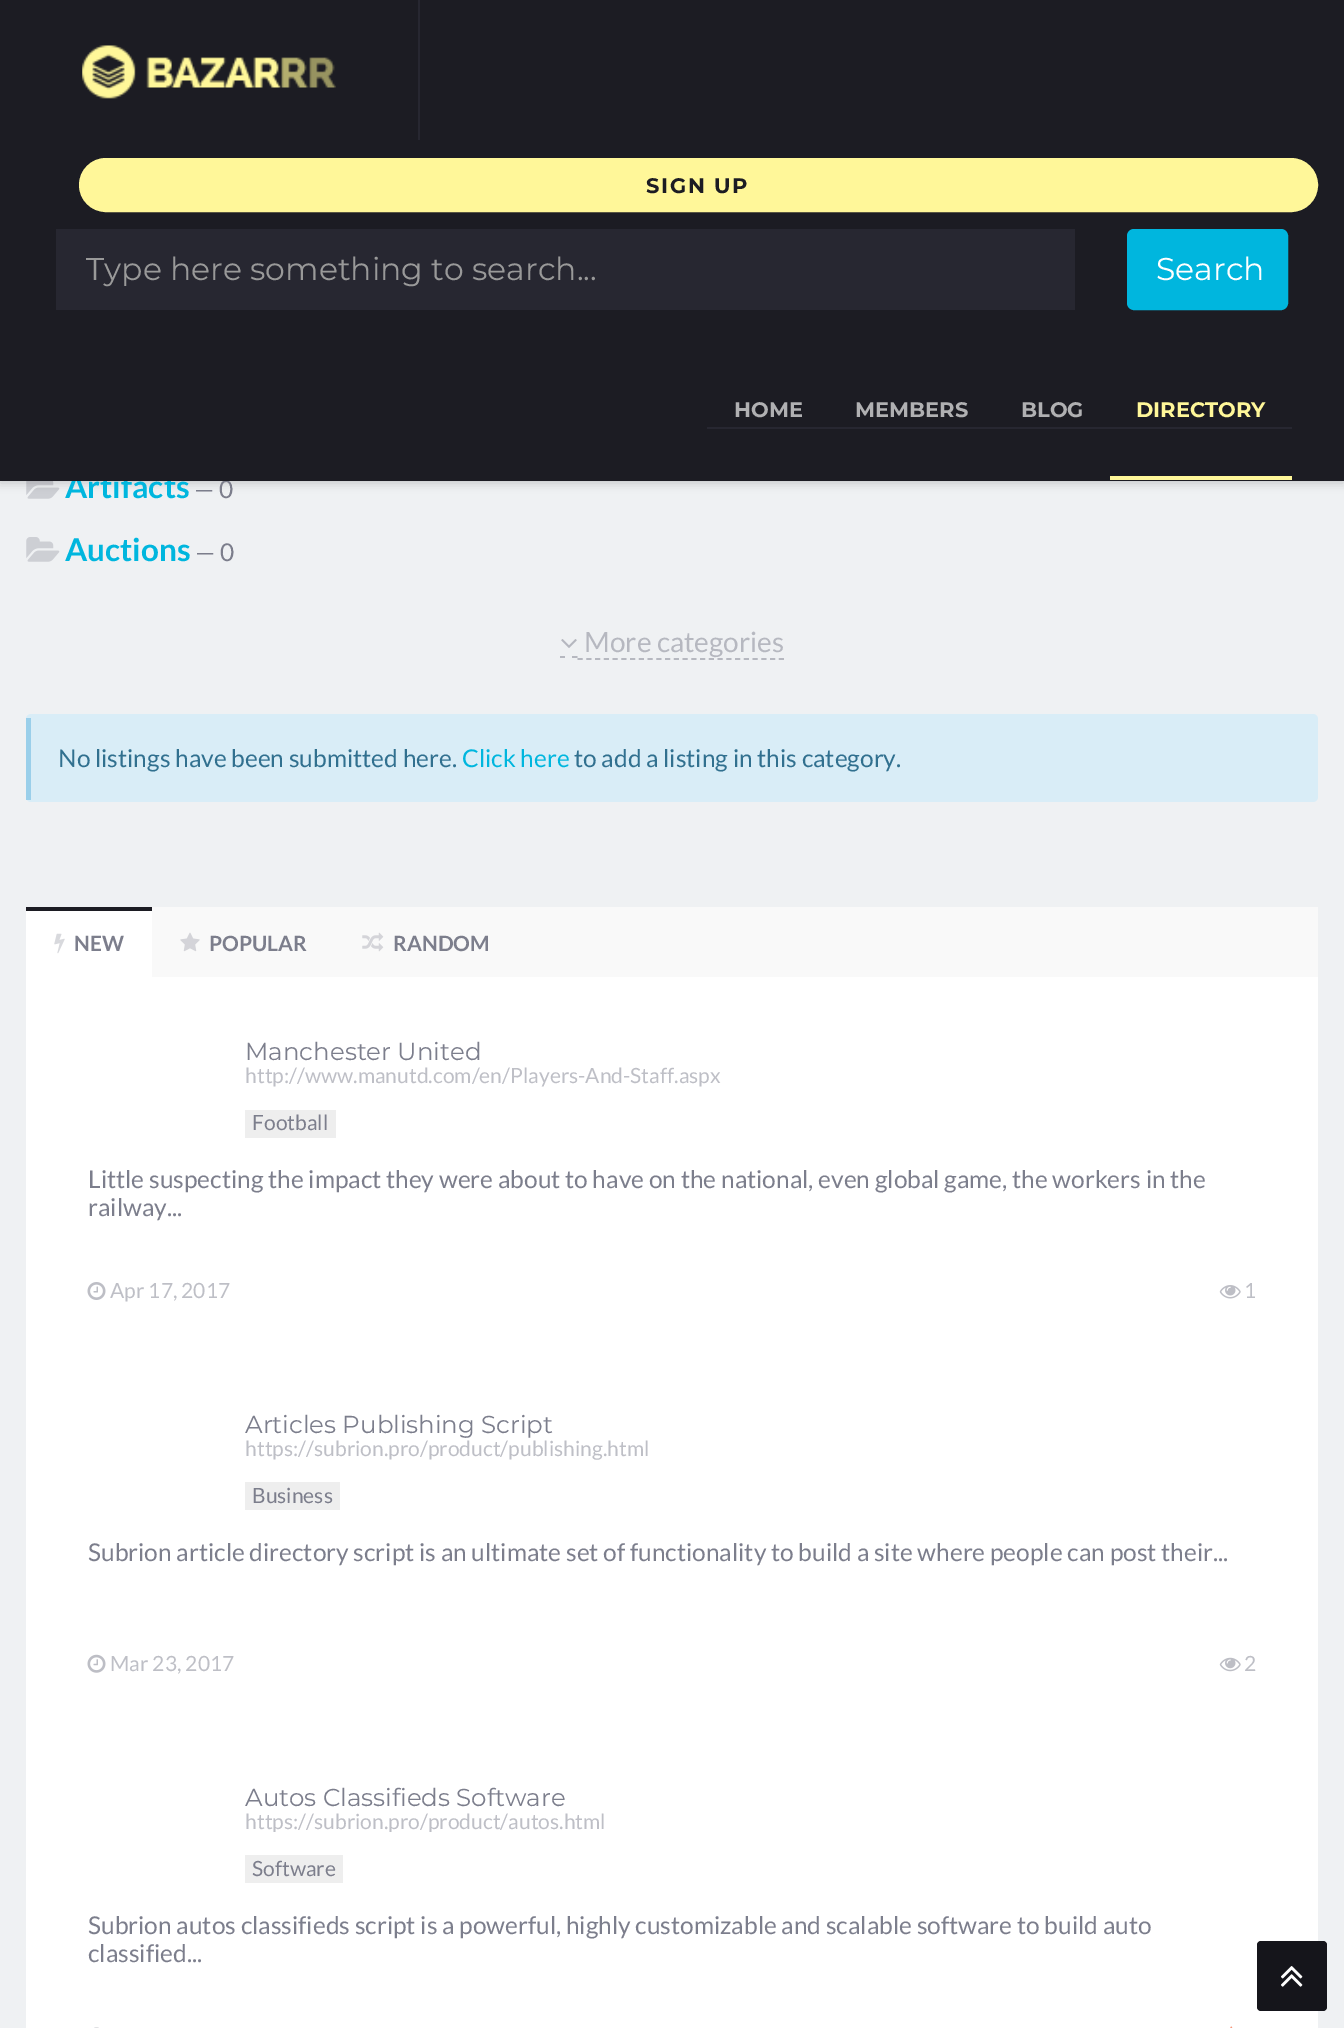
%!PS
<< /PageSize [1344 2028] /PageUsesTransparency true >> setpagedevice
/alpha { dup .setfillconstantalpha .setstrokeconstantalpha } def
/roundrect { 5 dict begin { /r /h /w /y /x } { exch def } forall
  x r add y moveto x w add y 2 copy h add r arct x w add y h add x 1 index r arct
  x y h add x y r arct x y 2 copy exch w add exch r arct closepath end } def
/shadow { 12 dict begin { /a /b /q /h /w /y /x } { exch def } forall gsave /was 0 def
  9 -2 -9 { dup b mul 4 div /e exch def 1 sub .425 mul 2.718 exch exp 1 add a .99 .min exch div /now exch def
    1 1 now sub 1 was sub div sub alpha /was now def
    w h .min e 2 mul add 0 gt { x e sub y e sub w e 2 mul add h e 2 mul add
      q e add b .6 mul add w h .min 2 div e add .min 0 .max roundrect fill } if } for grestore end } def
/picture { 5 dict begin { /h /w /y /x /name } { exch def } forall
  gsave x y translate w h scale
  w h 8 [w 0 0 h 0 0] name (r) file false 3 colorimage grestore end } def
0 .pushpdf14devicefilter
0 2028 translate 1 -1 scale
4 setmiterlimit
0.937 0.945 0.953 setrgbcolor
0 0 1344 2028 rectfill
(img2.rgb) 26 481 34 18 picture
0 setgray
0 2 1344 481 0 5 0.18 shadow
/Lato-Bold [31.5 0 0 -31.5 0 0] selectfont
0 0.714 0.871 setrgbcolor
65 498 moveto (Artifacts) show
/Lato-Regular [24.5 0 0 -24.5 0 0] selectfont
0.486 0.494 0.549 setrgbcolor
194 498 moveto (— 0) show
0.11 0.11 0.137 setrgbcolor
0 0 1344 481 rectfill
0.153 0.153 0.192 setrgbcolor
418 0 2 140 rectfill
(img1.rgb) 82 45 254 54 picture
1 0.969 0.6 setrgbcolor
80 159 1237 52 26 roundrect gsave fill grestore
2 setlinewidth
stroke
/Montserrat-Bold [21 0 0 -21 0 0] selectfont
0.11 0.11 0.137 setrgbcolor
646 193 moveto 1.75 0 (SIGN UP) ashow
0.153 0.153 0.192 setrgbcolor
56 229 1019 81 rectfill
/Montserrat-Regular [31.5 0 0 -31.5 0 0] selectfont
0.6 setgray
86 280 moveto (Type here something to search...) show
0 0.714 0.871 setrgbcolor
1128 230 159 79 6 roundrect gsave fill grestore
stroke
1 setgray
1156 280 moveto (Search) show
0.153 0.153 0.192 setrgbcolor
707 427 585 2 rectfill
/Montserrat-Bold [21 0 0 -21 0 0] selectfont
0.69 0.69 0.698 setrgbcolor
734 417 moveto (HOME) show
855 417 moveto (MEMBERS) show
1021 417 moveto (BLOG) show
1 0.969 0.6 setrgbcolor
1136 417 moveto (DIRECTORY) show
1110 476 182 4 rectfill
(img3.rgb) 26 537 34 25 picture
/Lato-Bold [31.5 0 0 -31.5 0 0] selectfont
0 0.714 0.871 setrgbcolor
65 561 moveto (Auctions) show
/Lato-Regular [24.5 0 0 -24.5 0 0] selectfont
0.486 0.494 0.549 setrgbcolor
195 561 moveto (— 0) show
0.714 0.722 0.753 setrgbcolor
1.8 setlinewidth
newpath 560 657 moveto 565 657 lineto 572 657 moveto 577.5 657 lineto stroke
[5.25 3.5] 0 setdash
newpath 577.5 659 moveto 784 659 lineto stroke
(img4.rgb) 561 639 16 9 picture
/Lato-Regular [28 0 0 -28 0 0] selectfont
584 652 moveto (More categories) show
0.851 0.929 0.969 setrgbcolor
26 714 1292 88 5 roundrect fill
0.604 0.812 0.918 setrgbcolor
26 718 5 82 rectfill
/Lato-Regular [24.5 0 0 -24.5 0 0] selectfont
0.192 0.439 0.561 setrgbcolor
58 767 moveto (No listings have been submitted here.) show
0 0.714 0.871 setrgbcolor
462 767 moveto (Click here) show
0.192 0.439 0.561 setrgbcolor
574 767 moveto (to add a listing in this category.) show
1 setgray
26 977 1292 1051 rectfill
0.976 setgray
152 907 1166 70 rectfill
1 setgray
26 911 126 66 rectfill
0.11 0.11 0.137 setrgbcolor
26 907 126 4 rectfill
(img5.rgb) 54 933 11 21 picture
/Lato-Bold [21 0 0 -21 0 0] selectfont
0.486 0.494 0.549 setrgbcolor
74 951 moveto (NEW) show
(img6.rgb) 180 932 20 20 picture
209 951 moveto (POPULAR) show
(img7.rgb) 362 932 22 20 picture
393 951 moveto (RANDOM) show
/Montserrat-Regular [24.5 0 0 -24.5 0 0] selectfont
245 1060 moveto (Manchester United) show
/Lato-Regular [21 0 0 -21 0 0] selectfont
0.745 0.749 0.776 setrgbcolor
245 1083 moveto (http://www.manutd.com/en/Players-And-Staff.aspx) show
0.933 setgray
245 1110 91 28 rectfill
0.486 0.494 0.549 setrgbcolor
252 1130 moveto (Football) show
/Lato-Regular [24.5 0 0 -24.5 0 0] selectfont
88 1188 moveto (Little suspecting the impact they were about to have on the national, even global game, the workers in the) show
88 1216 moveto (railway...) show
(img8.rgb) 87 1282 19 18 picture
/Lato-Regular [21 0 0 -21 0 0] selectfont
0.745 0.749 0.776 setrgbcolor
110 1298 moveto (Apr 17, 2017) show
(img9.rgb) 1219 1285 22 14 picture
1244 1298 moveto (1) show
/Montserrat-Regular [24.5 0 0 -24.5 0 0] selectfont
0.486 0.494 0.549 setrgbcolor
245 1433 moveto (Articles Publishing Script) show
/Lato-Regular [21 0 0 -21 0 0] selectfont
0.745 0.749 0.776 setrgbcolor
245 1456 moveto (https://subrion.pro/product/publishing.html) show
0.933 setgray
245 1482 95 28 rectfill
0.486 0.494 0.549 setrgbcolor
252 1503 moveto (Business) show
/Lato-Regular [24.5 0 0 -24.5 0 0] selectfont
88 1561 moveto (Subrion article directory script is an ultimate set of functionality to build a site where people can post their...) show
(img10.rgb) 87 1654 19 19 picture
/Lato-Regular [21 0 0 -21 0 0] selectfont
0.745 0.749 0.776 setrgbcolor
110 1671 moveto (Mar 23, 2017) show
(img11.rgb) 1219 1657 22 15 picture
1244 1671 moveto (2) show
/Montserrat-Regular [24.5 0 0 -24.5 0 0] selectfont
0.486 0.494 0.549 setrgbcolor
245 1806 moveto (Autos Classifieds Software) show
gsave
245 1811 1012 21 rectclip
/Lato-Regular [21 0 0 -21 0 0] selectfont
0.745 0.749 0.776 setrgbcolor
245 1829 moveto (https://subrion.pro/product/autos.html) show
grestore
0.933 setgray
245 1855 98 28 rectfill
/Lato-Regular [21 0 0 -21 0 0] selectfont
0.486 0.494 0.549 setrgbcolor
252 1876 moveto (Software) show
/Lato-Regular [24.5 0 0 -24.5 0 0] selectfont
88 1934 moveto (Subrion autos classifieds script is a powerful, highly customizable and scalable software to build auto) show
88 1962 moveto (classified...) show
(img12.rgb) 94 2027 5 1 picture
(img13.rgb) 1230 2026 3 2 picture
0.082 0.082 0.106 setrgbcolor
1257 1941 70 70 4 roundrect fill
(img14.rgb) 1281 1966 22 21 picture
.poppdf14devicefilter showpage
